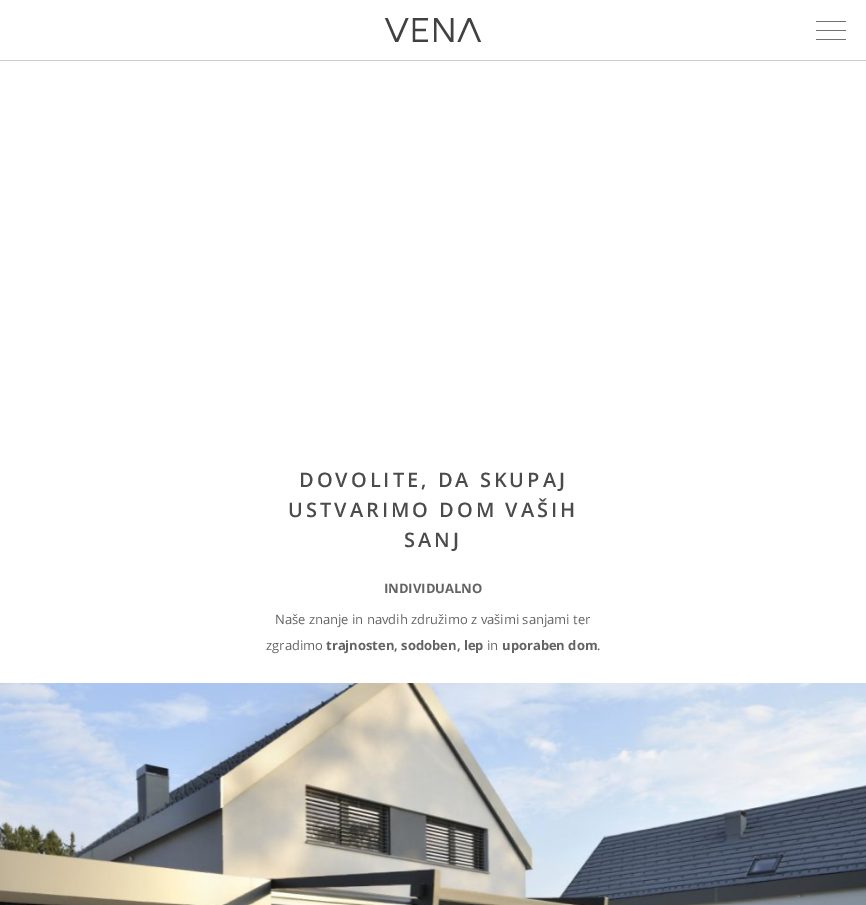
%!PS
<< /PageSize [866 905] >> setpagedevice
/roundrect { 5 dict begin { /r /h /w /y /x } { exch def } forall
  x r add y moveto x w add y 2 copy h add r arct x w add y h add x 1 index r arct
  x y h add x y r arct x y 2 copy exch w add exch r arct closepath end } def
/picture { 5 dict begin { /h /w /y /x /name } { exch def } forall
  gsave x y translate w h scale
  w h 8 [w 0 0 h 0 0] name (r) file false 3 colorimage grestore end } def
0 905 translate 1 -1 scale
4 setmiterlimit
1 setgray
0 0 866 905 rectfill
0.804 setgray
0 60 866 1 rectfill
(img1.rgb) 384 18 98 24 picture
0.443 0.443 0.439 setrgbcolor
816 21 30 1 0.5 roundrect fill
816 30 30 1 0.5 roundrect fill
816 39 30 1 0.5 roundrect fill
/OpenSans-SemiBold [20 0 0 -20 0 0] selectfont
0.294 0.294 0.29 setrgbcolor
299 487 moveto 3 0 (DOVOLITE, DA SKUPAJ) ashow
288 517 moveto 3 0 (USTVARIMO DOM VAŠIH) ashow
404 547 moveto 3 0 (SANJ) ashow
/OpenSans-Bold [13 0 0 -13 0 0] selectfont
0.388 setgray
384 593 moveto (INDIVIDUALNO) show
/OpenSans-Regular [13 0 0 -13 0 0] selectfont
275 624 moveto (Naše znanje in navdih združimo z vašimi sanjami ter) show
266 650 moveto (zgradimo) show
/OpenSans-Bold [13 0 0 -13 0 0] selectfont
326 650 moveto (trajnosten, sodoben, lep) show
/OpenSans-Regular [13 0 0 -13 0 0] selectfont
487 650 moveto (in) show
/OpenSans-Bold [13 0 0 -13 0 0] selectfont
502 650 moveto (uporaben dom) show
/OpenSans-Regular [13 0 0 -13 0 0] selectfont
597 650 moveto (.) show
(img2.rgb) 0 683 866 222 picture
showpage
